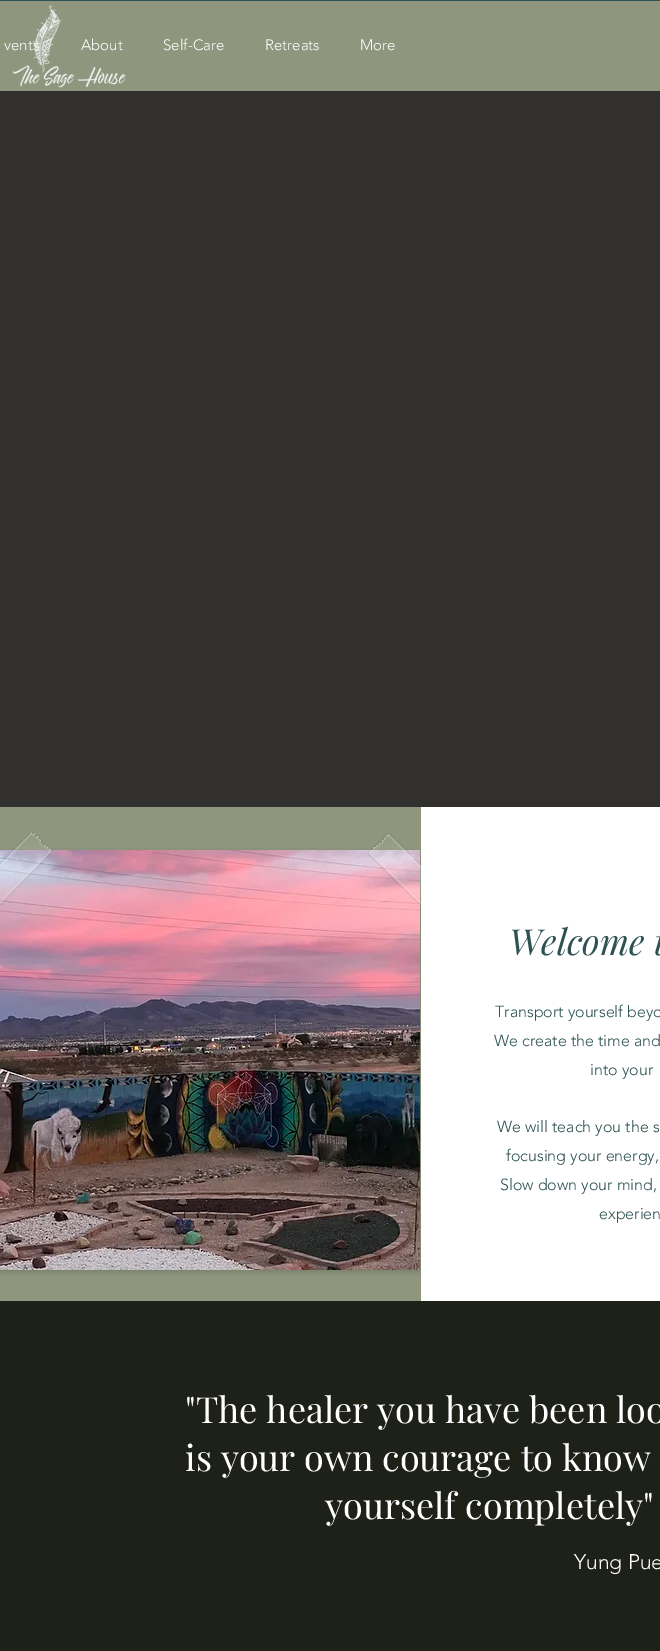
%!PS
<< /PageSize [660 1651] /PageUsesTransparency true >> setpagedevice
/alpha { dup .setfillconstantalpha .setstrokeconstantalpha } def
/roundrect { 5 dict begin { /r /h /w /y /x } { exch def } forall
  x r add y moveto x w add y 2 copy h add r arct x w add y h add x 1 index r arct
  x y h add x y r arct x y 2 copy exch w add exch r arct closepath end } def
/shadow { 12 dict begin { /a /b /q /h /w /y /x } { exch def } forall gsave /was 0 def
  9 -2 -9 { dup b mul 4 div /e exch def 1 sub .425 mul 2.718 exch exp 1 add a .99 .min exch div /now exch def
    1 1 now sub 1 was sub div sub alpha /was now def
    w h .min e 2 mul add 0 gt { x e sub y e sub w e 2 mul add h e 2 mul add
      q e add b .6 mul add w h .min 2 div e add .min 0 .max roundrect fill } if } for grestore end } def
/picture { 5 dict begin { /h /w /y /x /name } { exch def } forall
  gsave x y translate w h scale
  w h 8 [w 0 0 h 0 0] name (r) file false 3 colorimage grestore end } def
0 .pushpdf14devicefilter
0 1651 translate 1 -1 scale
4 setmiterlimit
0.18 0.322 0.322 setrgbcolor
0 0 660 1651 rectfill
0.557 0.588 0.494 setrgbcolor
0 1 660 90 rectfill
(img1.rgb) 12 5 114 83 picture
/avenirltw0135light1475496-Light [15 0 0 -15 0 0] selectfont
1 setgray
4 50 moveto (vents) show
81 50 moveto (About) show
163 50 moveto (Self-Care) show
265 50 moveto (Retreats) show
360 50 moveto (More) show
0.196 0.188 0.184 setrgbcolor
0 91 660 716 rectfill
0.557 0.588 0.494 setrgbcolor
0 807 421 494 rectfill
0 setgray
0 852 420 420 0 2.5 0.15 shadow
(img4.rgb) 0 850 420 420 picture
(img2.rgb) 0 832 52 74 picture
(img3.rgb) 368 833 53 73 picture
1 setgray
421 807 239 494 rectfill
/PlayfairDisplay-Italic [36 0 0 -36 0 0] selectfont
0.18 0.322 0.322 setrgbcolor
509 955 moveto (Welcome t) show
/avenirltw0135light1475496-Light [16 0 0 -16 0 0] selectfont
495 1017 moveto (Transport yourself beyo) show
494 1046 moveto (We create the time and) show
590 1075 moveto (into your) show
497 1132 moveto (We will teach you the s) show
506 1161 moveto (focusing your energy,) show
500 1190 moveto (Slow down your mind,) show
599 1219 moveto (experien) show
0.118 0.129 0.09 setrgbcolor
0 1301 660 350 rectfill
/PlayfairDisplay-Regular [36 0 0 -36 0 0] selectfont
1 setgray
185 1423 moveto ("The healer you have been loo) show
185 1471 moveto (is your own courage to know) show
325 1519 moveto (yourself completely") show
/avenirltw0135light1475496-Light [21 0 0 -21 0 0] selectfont
574 1569 moveto (Yung Pue) show
.poppdf14devicefilter showpage
